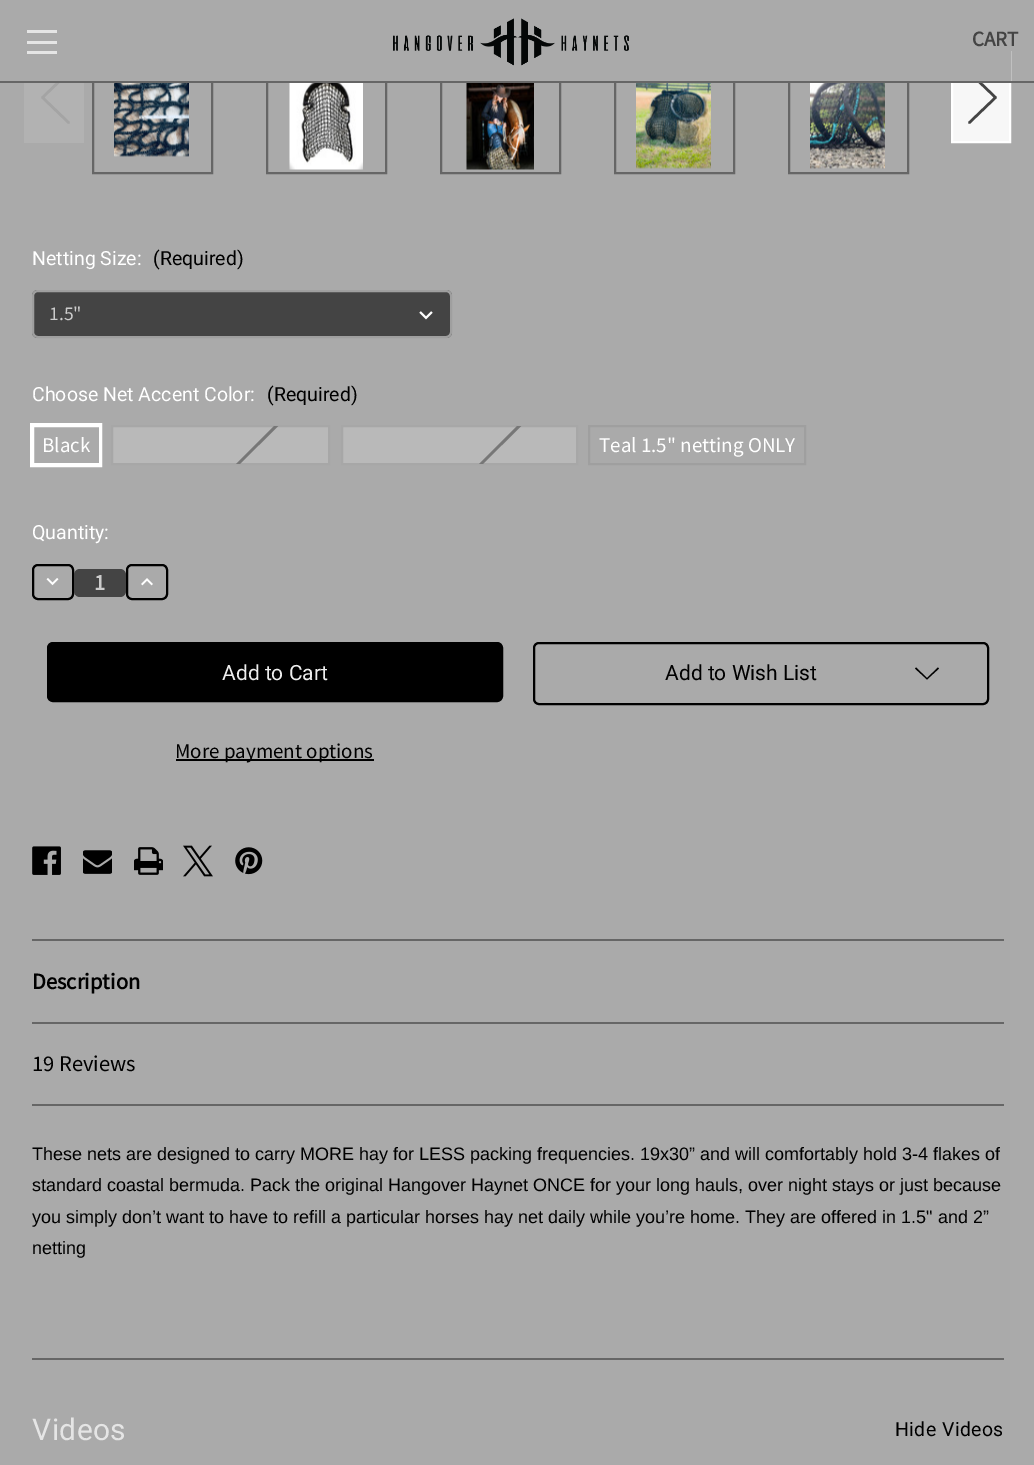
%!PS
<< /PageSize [1034 1465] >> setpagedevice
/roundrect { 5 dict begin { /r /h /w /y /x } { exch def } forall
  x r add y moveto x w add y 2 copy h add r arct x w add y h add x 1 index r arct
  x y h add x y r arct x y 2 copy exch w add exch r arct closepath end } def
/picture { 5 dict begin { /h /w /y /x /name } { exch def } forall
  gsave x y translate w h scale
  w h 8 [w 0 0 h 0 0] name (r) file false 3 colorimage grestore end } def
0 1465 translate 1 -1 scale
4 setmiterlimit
0.667 setgray
0 0 1034 1465 rectfill
0.698 setgray
24 83 60 60 rectfill
0.643 setgray
2.5 setlinewidth
1 setlinecap
1 setlinejoin
newpath 68.5 72.5 moveto 42.5 97.5 lineto 68.5 122.5 lineto stroke
0.4 setgray
2 setlinewidth
0 setlinecap
0 setlinejoin
93 66 119 107 rectstroke
267 66 119 107 rectstroke
441 66 119 107 rectstroke
615 66 119 107 rectstroke
789 66 119 107 rectstroke
0.969 setgray
953 83 56 58 rectfill
1 setgray
952 52 58 90 rectstroke
0.267 setgray
2.5 setlinewidth
1 setlinecap
1 setlinejoin
newpath 969.5 72.5 moveto 995.5 97.5 lineto 969.5 122.5 lineto stroke
0.667 setgray
58 51 953 30 rectfill
0.4 setgray
0 81 1034 2 rectfill
0.898 setgray
27 41 30 3 rectfill
27 30 30 3 rectfill
27 51 30 3 rectfill
(img1.rgb) 393 18 236 48 picture
/SourceSansPro-Bold [21 0 0 -21 0 0] selectfont
0.267 setgray
972 46 moveto (CART) show
(img2.rgb) 114 83 75 74 picture
(img3.rgb) 289 83 74 87 picture
(img4.rgb) 466 83 68 87 picture
(img5.rgb) 636 83 75 86 picture
(img6.rgb) 810 83 75 86 picture
/Roboto-Regular [19.5 0 0 -19.5 0 0] selectfont
1 setgray
32 265 moveto (Netting Size:) show
0 setgray
153 265 moveto (\(Required\)) show
0.267 setgray
32 290 420 48 6 roundrect fill
(img7.rgb) 419 311 14 9 picture
0.624 setgray
2 setlinewidth
0 setlinecap
0 setlinejoin
33 291 418 46 5 roundrect stroke
/SourceSansPro-Regular [19.5 0 0 -19.5 0 0] selectfont
0.8 setgray
49 320 moveto (1.5") show
/Roboto-Regular [19.5 0 0 -19.5 0 0] selectfont
1 setgray
32 401 moveto (Choose Net Accent Color:) show
0 setgray
267 401 moveto (\(Required\)) show
1 setgray
31 424 70 42 rectstroke
33 426 67 38 rectstroke
/SourceSansPro-Regular [21 0 0 -21 0 0] selectfont
42 452 moveto (Black) show
0.725 setgray
newpath 112 426 moveto 329 426 lineto 329 464 lineto 112 464 lineto closepath gsave fill grestore
0.655 setgray
stroke
gsave
113 426 216 38 rectclip
0.467 setgray
newpath 149 551 moveto 364 336 lineto 366 338 lineto 151 553 lineto closepath fill
grestore
0.725 setgray
newpath 342 426 moveto 577 426 lineto 577 464 lineto 342 464 lineto closepath gsave fill grestore
0.655 setgray
stroke
gsave
342 426 234 38 rectclip
0.467 setgray
newpath 382 561 moveto 616 327 lineto 618 329 lineto 384 563 lineto closepath fill
grestore
0.624 setgray
589 426 216 38 rectstroke
1 setgray
599 452 moveto (Teal 1.5" netting ONLY) show
/Roboto-Regular [19.5 0 0 -19.5 0 0] selectfont
32 539 moveto (Quantity:) show
0 setgray
33 565 40 34 5 roundrect stroke
(img8.rgb) 46 578 13 8 picture
0.267 setgray
74 569 52 28 6 roundrect fill
/SourceSansPro-Bold [22.5 0 0 -22.5 0 0] selectfont
0.8 setgray
94 590 moveto (1) show
0 setgray
127 565 40 34 5 roundrect stroke
(img9.rgb) 141 578 12 8 picture
48 643 454 58 5 roundrect gsave fill grestore
stroke
/Roboto-Regular [21 0 0 -21 0 0] selectfont
0.933 setgray
222 680 moveto (Add to Cart) show
0 setgray
176 759 198 2 rectfill
/SourceSansPro-Regular [21 0 0 -21 0 0] selectfont
175 758 moveto (More payment options) show
534 643 454 61 5 roundrect stroke
/Roboto-Regular [21 0 0 -21 0 0] selectfont
665 680 moveto (Add to Wish List) show
newpath 927 678 moveto 938 667.5 lineto 939 668.5 lineto 927 679.5 lineto 915 668.5 lineto 916 667.5 lineto closepath eofill
(img10.rgb) 32 846 29 29 picture
(img11.rgb) 83 850 29 24 picture
(img12.rgb) 134 847 29 28 picture
(img13.rgb) 183 845 30 32 picture
(img14.rgb) 235 847 28 28 picture
0.4 setgray
32 1104 972 2 rectfill
32 939 972 2 rectfill
/SourceSansPro-Bold [22.5 0 0 -22.5 0 0] selectfont
0 setgray
32 989 moveto (Description) show
0.4 setgray
32 1022 972 2 rectfill
/SourceSansPro-Regular [22.5 0 0 -22.5 0 0] selectfont
0 setgray
32 1071 moveto (19 Reviews) show
/LiberationSans-Regular [18 0 0 -18 0 0] selectfont
32 1160 moveto (These nets are designed to carry MORE hay for LESS packing frequencies. 19x30” and will comfortably hold 3-4 flakes of) show
32 1191 moveto (standard coastal bermuda. Pack the original Hangover Haynet ONCE for your long hauls, over night stays or just because) show
32 1223 moveto (you simply don’t want to have to refill a particular horses hay net daily while you’re home. They are offered in 1.5" and 2”) show
32 1254 moveto (netting) show
0.4 setgray
32 1358 972 2 rectfill
/Roboto-Regular [30 0 0 -30 0 0] selectfont
0.898 setgray
32 1440 moveto 0.4 0 (Videos) ashow
/Roboto-Regular [19.5 0 0 -19.5 0 0] selectfont
0 setgray
895 1436 moveto 0.4 0 (Hide Videos) ashow
showpage
